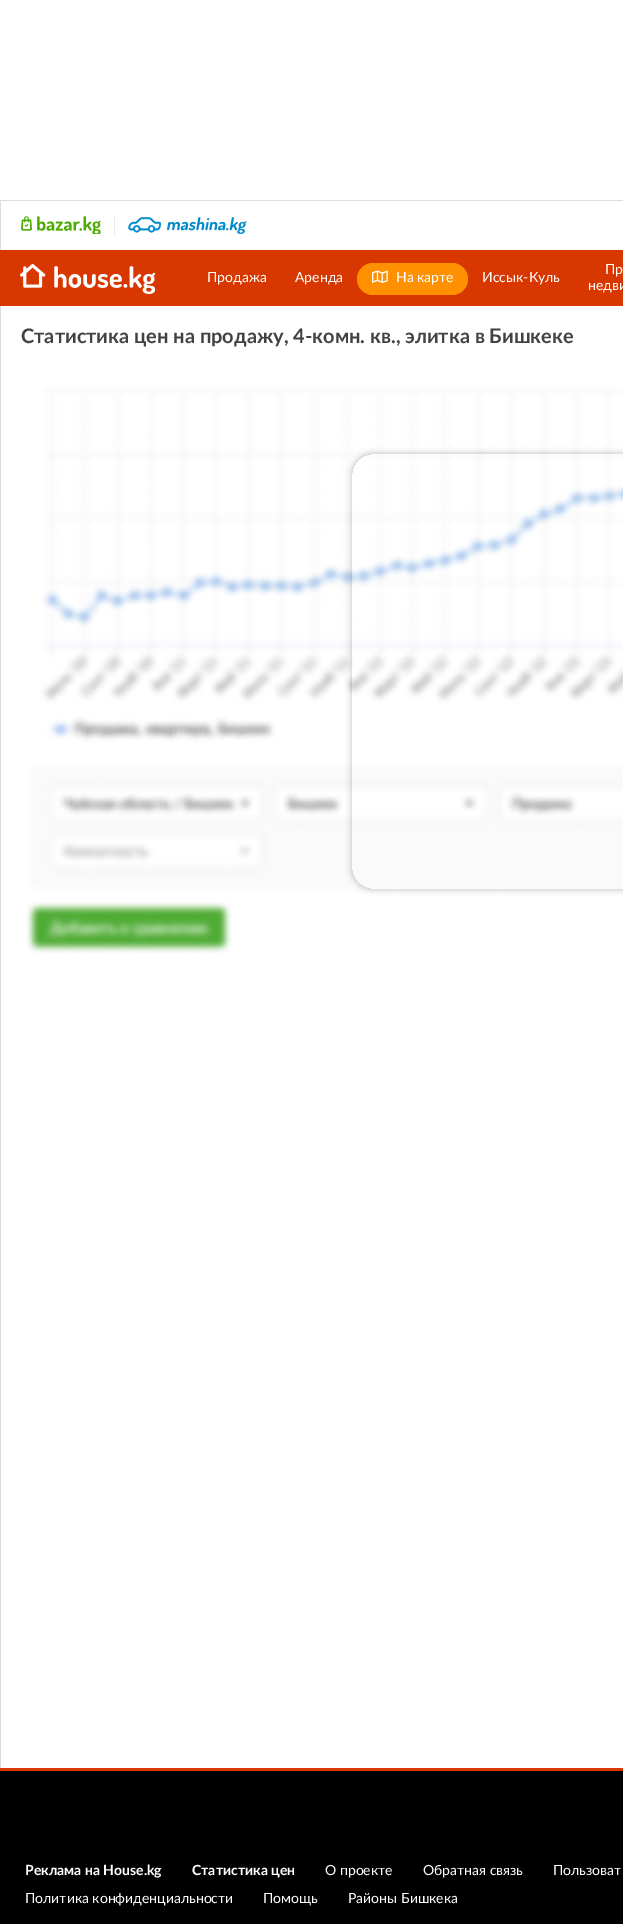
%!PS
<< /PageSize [623 1924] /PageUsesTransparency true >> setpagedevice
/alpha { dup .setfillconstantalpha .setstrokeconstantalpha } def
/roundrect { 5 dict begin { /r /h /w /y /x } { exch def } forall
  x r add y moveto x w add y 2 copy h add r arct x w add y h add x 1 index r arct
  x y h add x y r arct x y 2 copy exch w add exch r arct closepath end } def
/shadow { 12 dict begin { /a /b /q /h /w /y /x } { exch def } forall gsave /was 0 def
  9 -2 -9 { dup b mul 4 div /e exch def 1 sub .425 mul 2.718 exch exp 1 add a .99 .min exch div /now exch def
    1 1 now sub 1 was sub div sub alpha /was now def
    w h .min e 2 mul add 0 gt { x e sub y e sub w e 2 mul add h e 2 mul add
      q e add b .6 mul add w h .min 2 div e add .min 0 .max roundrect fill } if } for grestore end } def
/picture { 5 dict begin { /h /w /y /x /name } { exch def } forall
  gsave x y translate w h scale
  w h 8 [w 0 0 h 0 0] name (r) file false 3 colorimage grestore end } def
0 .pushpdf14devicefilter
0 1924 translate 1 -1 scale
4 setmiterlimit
1 setgray
0 0 623 1924 rectfill
0.871 setgray
0 200 623 1 rectfill
0 200 1 50 rectfill
(img1.rgb) 21 216 80 18 picture
0.925 setgray
114 216 1 20 rectfill
(img2.rgb) 128 217 119 17 picture
0.847 0.216 0 setrgbcolor
0 250 623 56 rectfill
(img3.rgb) 20 264 135 30 picture
/Lato-Regular [14 0 0 -14 0 0] selectfont
1 setgray
207 282 moveto (Продажа) show
295 282 moveto (Аренда) show
1 0.565 0 setrgbcolor
357 263 111 32 16 roundrect fill
(img4.rgb) 372 270 16 13 picture
1 setgray
396 282 moveto (На карте) show
482 282 moveto (Иссык-Куль) show
605 274 moveto (Пр) show
588 290 moveto (недви) show
0.863 setgray
0 306 1 1462 rectfill
/Lato-Bold [20 0 0 -20 0 0] selectfont
0.259 setgray
21 343 moveto (Статистика цен на продажу, 4-комн. кв., элитка в Бишкеке) show
(img5.rgb) 26 387 597 567 picture
gsave
newpath 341 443 moveto 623 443 lineto 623 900 lineto 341 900 lineto closepath 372 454 moveto 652 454 lineto 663 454 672 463 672 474 curveto 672 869 lineto 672 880 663 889 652 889 curveto 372 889 lineto 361 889 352 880 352 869 curveto 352 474 lineto 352 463 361 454 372 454 curveto closepath eoclip newpath
0 setgray
351 453 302 437 21 3 0.2 shadow
grestore
0 setgray
0 1771 623 153 rectfill
0.847 0.216 0 setrgbcolor
0 1768 623 3 rectfill
/Lato-Bold [14 0 0 -14 0 0] selectfont
1 setgray
25 1875 moveto (Реклама на House.kg) show
192 1875 moveto (Статистика цен) show
/Lato-Regular [14 0 0 -14 0 0] selectfont
325 1875 moveto (О проекте) show
423 1875 moveto (Обратная связь) show
553 1875 moveto (Пользоват) show
25 1903 moveto (Политика конфиденциальности) show
263 1903 moveto (Помощь) show
348 1903 moveto (Районы Бишкека) show
.poppdf14devicefilter showpage
